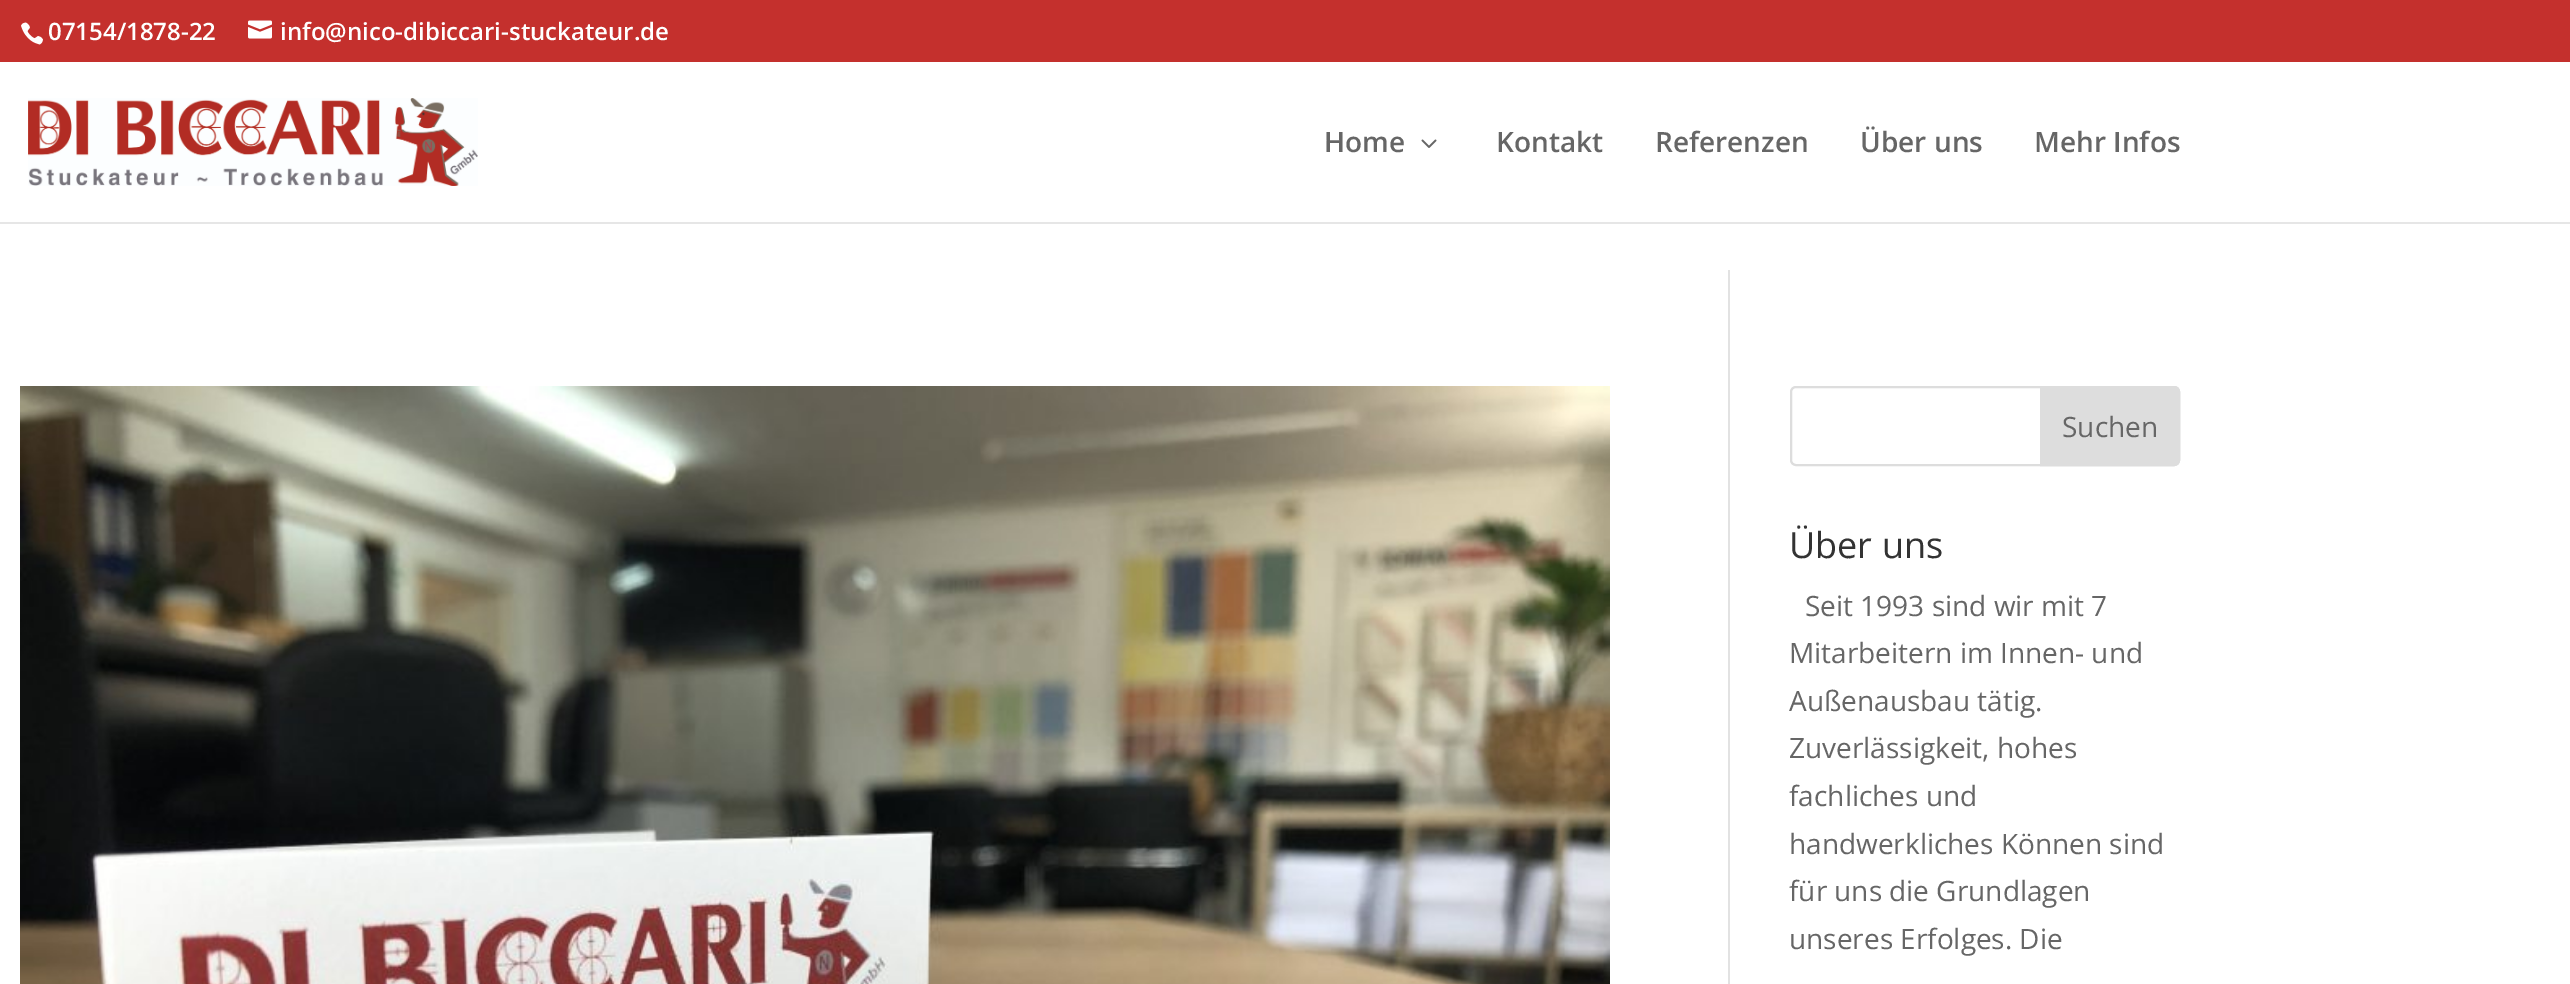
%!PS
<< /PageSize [2570 984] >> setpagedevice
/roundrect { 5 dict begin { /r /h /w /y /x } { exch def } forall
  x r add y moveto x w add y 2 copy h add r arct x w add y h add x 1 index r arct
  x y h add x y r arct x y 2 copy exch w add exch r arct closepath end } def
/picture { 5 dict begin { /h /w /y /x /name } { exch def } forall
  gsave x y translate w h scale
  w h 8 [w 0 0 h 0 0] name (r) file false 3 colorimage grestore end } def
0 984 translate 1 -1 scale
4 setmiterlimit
1 setgray
0 0 2570 984 rectfill
0.769 0.188 0.176 setrgbcolor
0 0 2570 62 rectfill
(img1.rgb) 21 22 22 23 picture
/OpenSans-SemiBold [24 0 0 -24 0 0] selectfont
1 setgray
48 40 moveto (07154/1878-22) show
(img2.rgb) 248 20 24 19 picture
280 40 moveto (info@nico-dibiccari-stuckateur.de) show
0.902 setgray
0 222 2570 2 rectfill
(img3.rgb) 28 98 450 88 picture
/OpenSans-SemiBold [28 0 0 -28 0 0] selectfont
0.4 setgray
1324 152 moveto (Home) show
(img4.rgb) 1421 139 16 9 picture
1496 152 moveto (Kontakt) show
1655 152 moveto (Referenzen) show
1860 152 moveto (Über uns) show
2034 152 moveto (Mehr Infos) show
0.886 setgray
1728 270 2 714 rectfill
(img5.rgb) 20 386 1590 598 picture
0.867 setgray
2 setlinewidth
1791 387 388 78 5 roundrect stroke
newpath 2041 387 moveto 2174 387 lineto 2177 387 2179 389 2179 392 curveto 2179 460 lineto 2179 463 2177 465 2174 465 curveto 2041 465 lineto closepath gsave fill grestore
stroke
/OpenSans-Regular [28 0 0 -28 0 0] selectfont
0.4 setgray
2062 437 moveto (Suchen) show
/OpenSans-Regular [36 0 0 -36 0 0] selectfont
0.2 setgray
1789 558 moveto (Über uns) show
/OpenSans-Regular [28 0 0 -28 0 0] selectfont
0.4 setgray
1805 616 moveto (Seit 1993 sind wir mit 7) show
1789 663 moveto (Mitarbeitern im Innen- und) show
1789 711 moveto (Außenausbau tätig.) show
1789 758 moveto (Zuverlässigkeit, hohes) show
1789 806 moveto (fachliches und) show
1789 854 moveto (handwerkliches Können sind) show
1789 901 moveto (für uns die Grundlagen) show
1789 949 moveto (unseres Erfolges. Die) show
showpage
